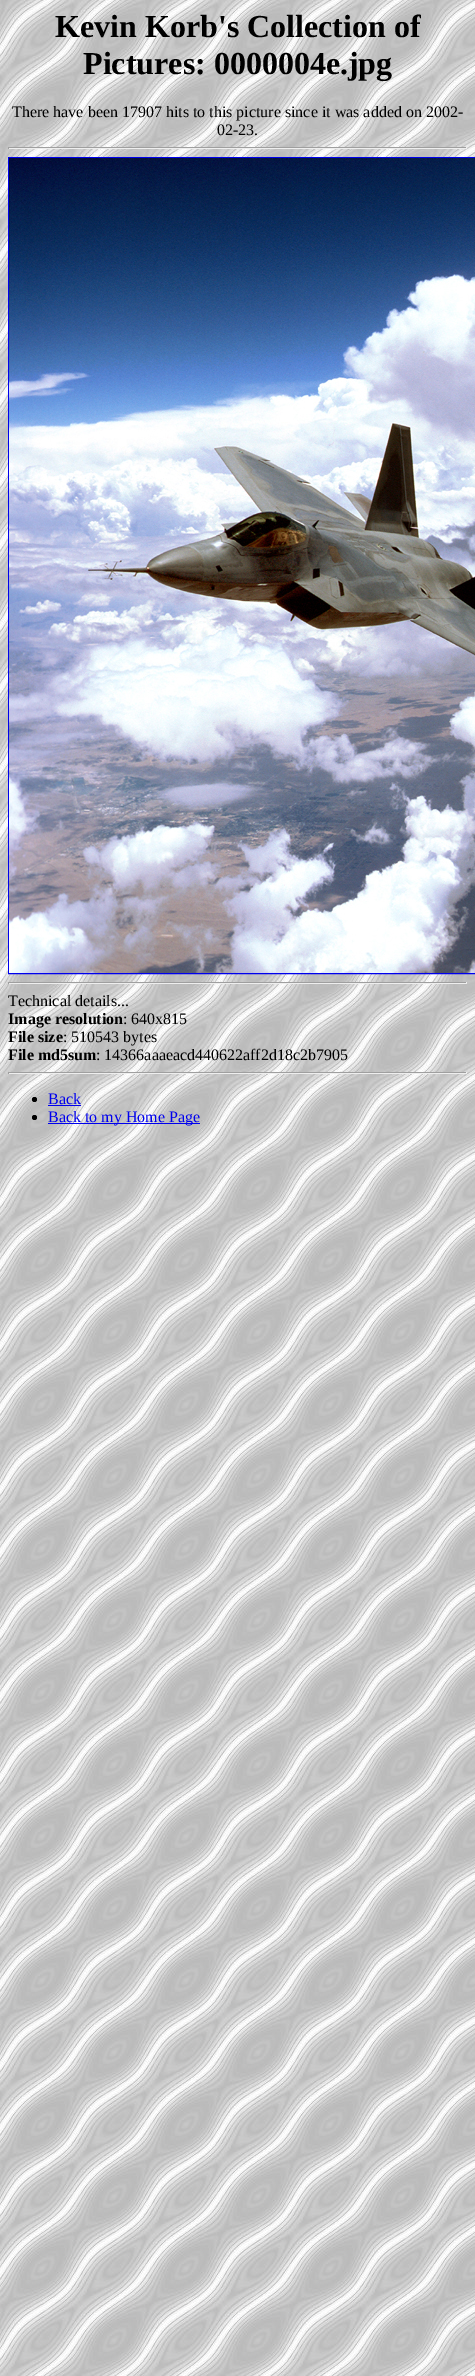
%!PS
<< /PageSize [475 2376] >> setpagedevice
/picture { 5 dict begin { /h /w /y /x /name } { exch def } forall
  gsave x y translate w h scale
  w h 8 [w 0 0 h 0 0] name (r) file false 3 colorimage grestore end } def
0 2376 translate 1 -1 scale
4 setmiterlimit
1 setgray
0 0 475 2376 rectfill
(img1.rgb) 0 0 475 2376 picture
/LiberationSerif-Bold [32 0 0 -32 0 0] selectfont
0 setgray
55 37 moveto (Kevin Korb's Collection of) show
83 74 moveto (Pictures: 0000004e.jpg) show
/LiberationSerif-Regular [16 0 0 -16 0 0] selectfont
12 117 moveto (There have been 17907 hits to this picture since it was added on 2002-) show
217 135 moveto (02-23.) show
0.624 setgray
8 147 459 1 rectfill
0.933 setgray
466 147 1 2 rectfill
8 148 459 1 rectfill
0.624 setgray
8 147 1 2 rectfill
0 0 0.933 setrgbcolor
8.5 157.5 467 816 rectstroke
(img2.rgb) 9 158 466 815 picture
0.624 setgray
8 982 459 1 rectfill
0.933 setgray
466 982 1 2 rectfill
8 983 459 1 rectfill
0.624 setgray
8 982 1 2 rectfill
0 setgray
8 1006 moveto (Technical details...) show
/LiberationSerif-Bold [16 0 0 -16 0 0] selectfont
8 1024 moveto (Image resolution) show
/LiberationSerif-Regular [16 0 0 -16 0 0] selectfont
123 1024 moveto (: 640x815) show
/LiberationSerif-Bold [16 0 0 -16 0 0] selectfont
8 1042 moveto (File size) show
/LiberationSerif-Regular [16 0 0 -16 0 0] selectfont
63 1042 moveto (: 510543 bytes) show
/LiberationSerif-Bold [16 0 0 -16 0 0] selectfont
8 1060 moveto (File md5sum) show
/LiberationSerif-Regular [16 0 0 -16 0 0] selectfont
96 1060 moveto (: 14366aaaeacd440622aff2d18c2b7905) show
0.624 setgray
8 1072 459 1 rectfill
0.933 setgray
466 1072 1 2 rectfill
8 1073 459 1 rectfill
0.624 setgray
8 1072 1 2 rectfill
0 setgray
newpath 34.5 1099.5 2.5 0 360 arc closepath fill
0 0 0.933 setrgbcolor
48 1104 moveto (Back) show
48 1105 33 1 rectfill
0 setgray
newpath 34.5 1117.5 2.5 0 360 arc closepath fill
0 0 0.933 setrgbcolor
48 1123 152 1 rectfill
48 1122 moveto (Back to my Home Page) show
showpage
